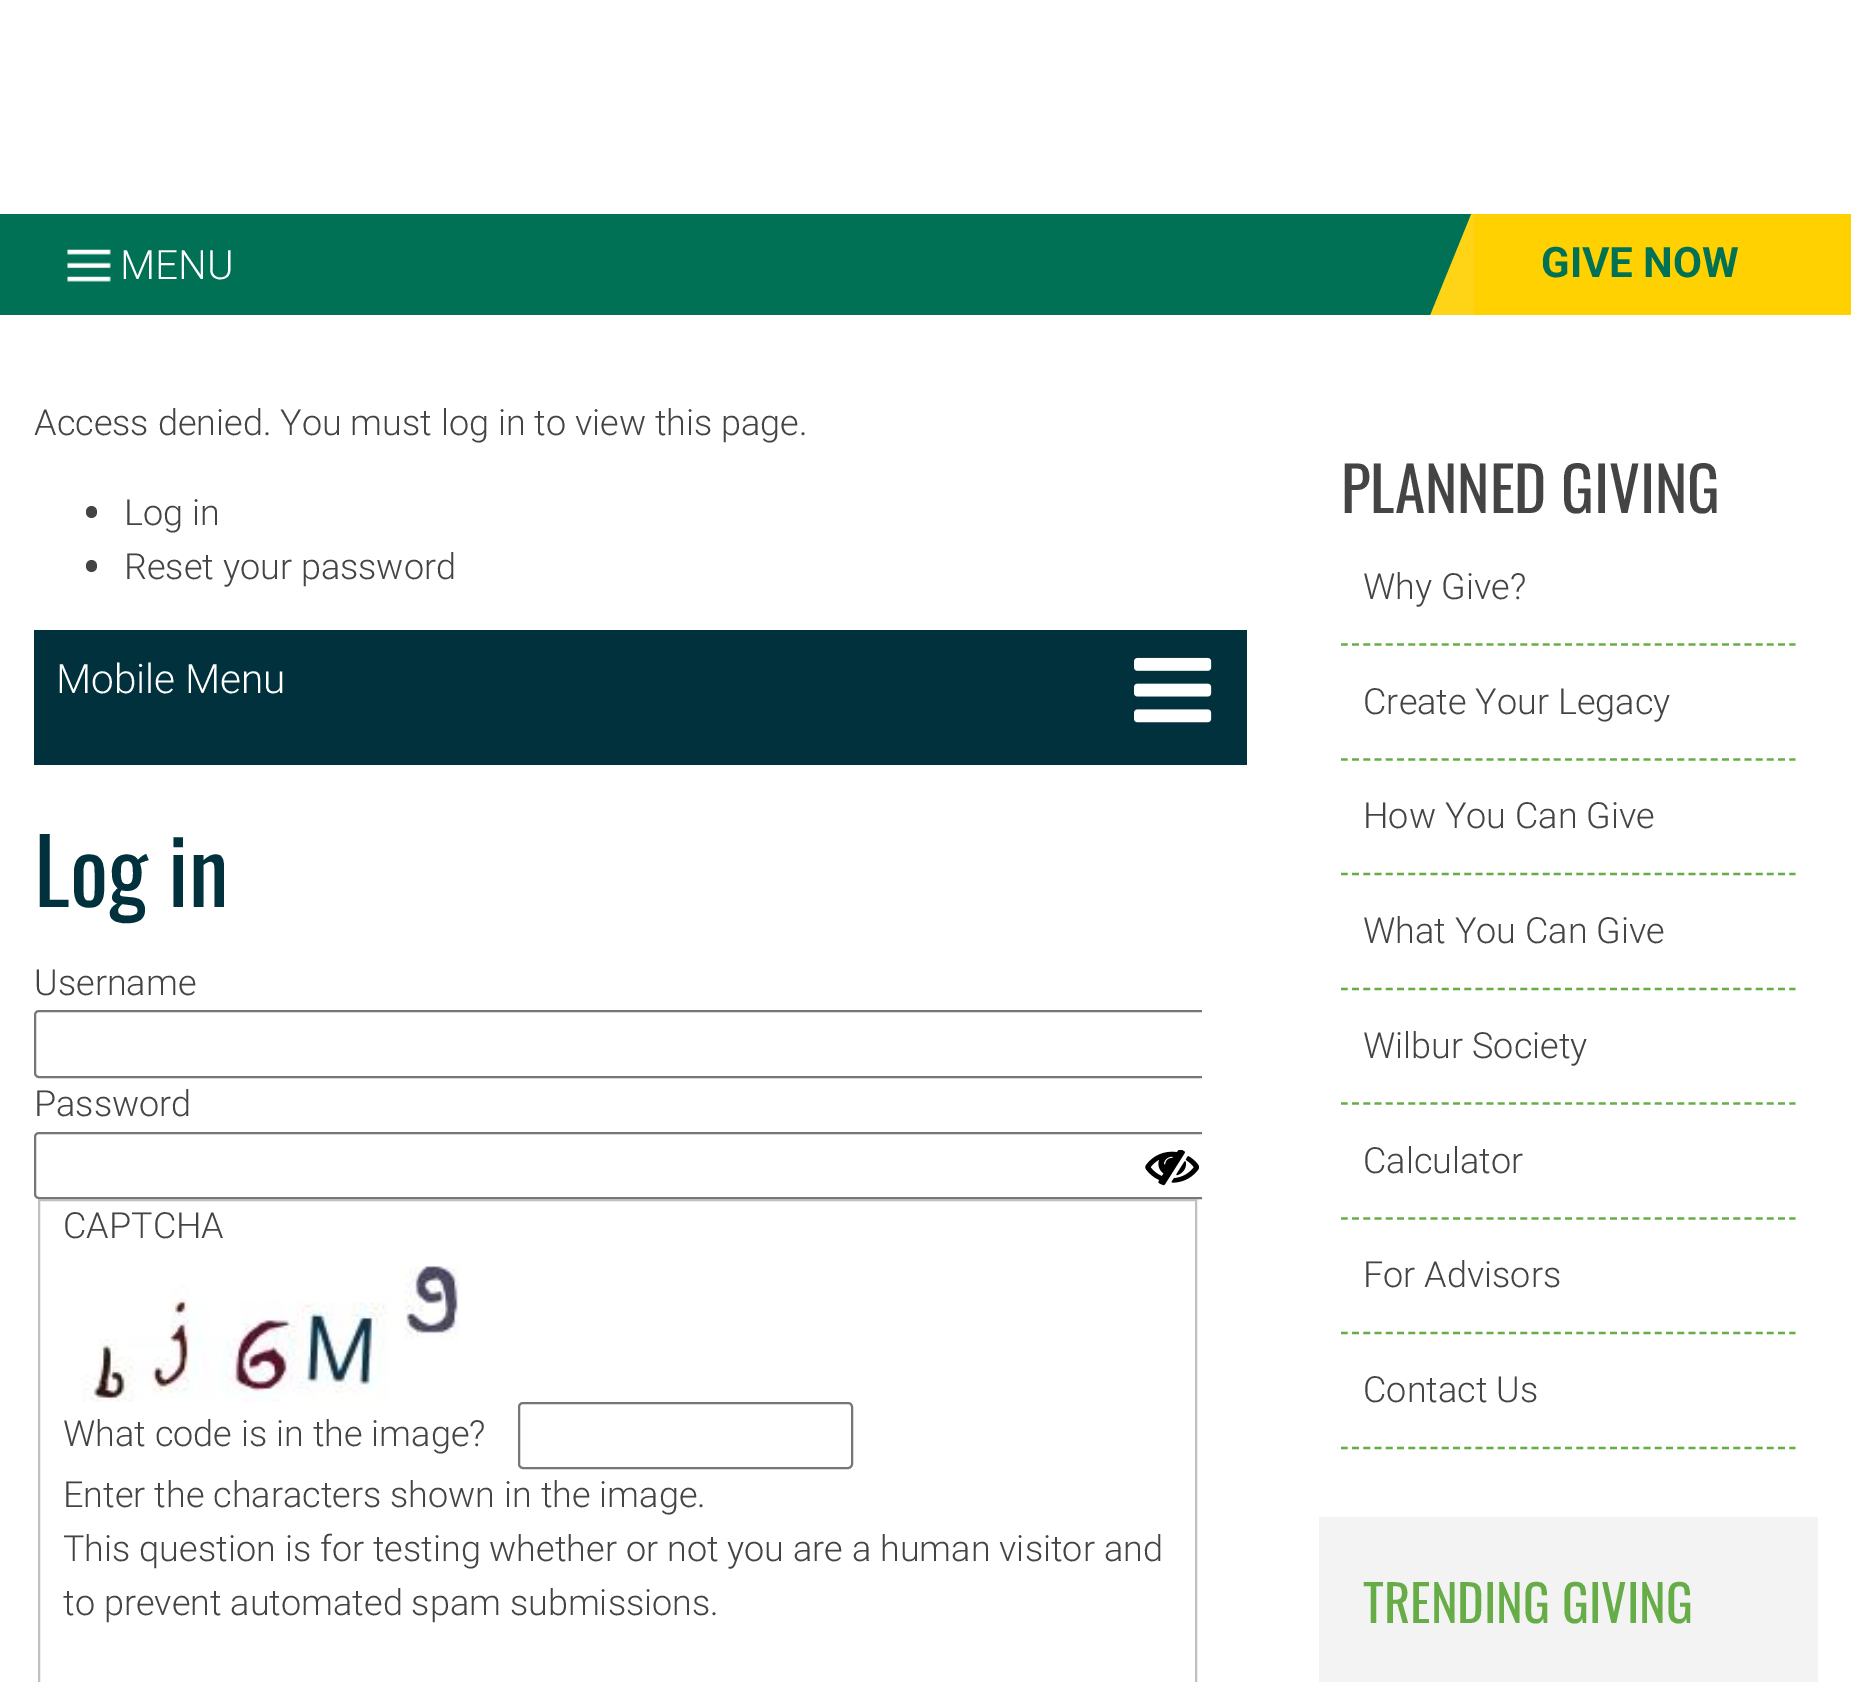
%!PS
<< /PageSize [1851 1682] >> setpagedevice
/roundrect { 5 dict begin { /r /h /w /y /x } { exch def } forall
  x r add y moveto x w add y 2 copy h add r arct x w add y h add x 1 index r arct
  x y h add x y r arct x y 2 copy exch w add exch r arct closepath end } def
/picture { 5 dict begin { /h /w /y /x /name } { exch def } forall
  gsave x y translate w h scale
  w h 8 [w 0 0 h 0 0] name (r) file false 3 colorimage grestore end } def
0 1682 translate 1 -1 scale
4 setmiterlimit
1 setgray
0 0 1851 1682 rectfill
0 0.443 0.333 setrgbcolor
0 214 1449 101 rectfill
(img1.rgb) 67 249 44 33 picture
/Roboto-Light [40.5 0 0 -40.5 0 0] selectfont
1 setgray
120 279 moveto (MENU) show
1 0.831 0.086 setrgbcolor
newpath 1462 214 moveto 1575 214 lineto 1534 315 lineto 1421 315 lineto closepath fill
0 0.443 0.333 setrgbcolor
newpath 1449 214 moveto 1471 214 lineto 1430 315 lineto 1408 315 lineto closepath fill
1 0.82 0 setrgbcolor
1474 214 377 101 rectfill
/Roboto-Bold [42 0 0 -42 0 0] selectfont
0 0.443 0.333 setrgbcolor
1541 277 moveto (GIVE NOW) show
/Roboto-Light [36 0 0 -36 0 0] selectfont
0.267 setgray
34 435 moveto (Access denied. You must log in to view this page.) show
86 506 11 12 5.5 roundrect fill
124 525 moveto (Log in) show
86 560 11 12 5.5 roundrect fill
124 579 moveto (Reset your password) show
0 0.192 0.235 setrgbcolor
34 630 1213 135 rectfill
/Roboto-Light [40.5 0 0 -40.5 0 0] selectfont
1 setgray
56 693 moveto (Mobile Menu) show
(img2.rgb) 1134 657 78 66 picture
/Oswald-Regular [90 0 0 -90 0 0] selectfont
0 0.192 0.235 setrgbcolor
34 907 moveto (Log in) show
/Roboto-Light [36 0 0 -36 0 0] selectfont
0.267 setgray
34 995 moveto (Username) show
gsave
34 956 1168 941 rectclip
0.463 setgray
2 setlinewidth
35 1011 1181 66 4 roundrect stroke
grestore
34 1116 moveto (Password) show
gsave
34 956 1168 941 rectclip
0.463 setgray
2 setlinewidth
35 1133 1181 65 4 roundrect stroke
grestore
(img3.rgb) 1145 1150 54 36 picture
0.753 setgray
2 setlinewidth
39 1200 1157 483 rectstroke
0.267 setgray
63 1238 moveto (CAPTCHA) show
(img4.rgb) 81 1266 379 136 picture
63 1446 moveto (What code is in the image?) show
0.463 setgray
519 1403 333 65 4 roundrect stroke
0.267 setgray
63 1507 moveto (Enter the characters shown in the image.) show
63 1561 moveto (This question is for testing whether or not you are a human visitor and) show
63 1615 moveto (to prevent automated spam submissions.) show
/Oswald-Regular [61.25 0 0 -61.25 0 0] selectfont
1341 513 moveto (PLANNED GIVING) show
0.4 0.675 0.278 setrgbcolor
2.2 setlinewidth
[6.75 4.46] 0 setdash
newpath 1341 644.5 moveto 1795.5 644.5 lineto stroke
/Roboto-Light [36 0 0 -36 0 0] selectfont
0.267 setgray
1363 599 moveto (Why Give?) show
0.4 0.675 0.278 setrgbcolor
newpath 1341 759.5 moveto 1795.5 759.5 lineto stroke
0.267 setgray
1363 714 moveto (Create Your Legacy) show
0.4 0.675 0.278 setrgbcolor
newpath 1341 874 moveto 1795.5 874 lineto stroke
0.267 setgray
1363 828 moveto (How You Can Give) show
0.4 0.675 0.278 setrgbcolor
newpath 1341 989 moveto 1795.5 989 lineto stroke
0.267 setgray
1363 943 moveto (What You Can Give) show
0.4 0.675 0.278 setrgbcolor
newpath 1341 1103.5 moveto 1795.5 1103.5 lineto stroke
0.267 setgray
1363 1058 moveto (Wilbur Society) show
0.4 0.675 0.278 setrgbcolor
newpath 1341 1218.5 moveto 1795.5 1218.5 lineto stroke
0.267 setgray
1363 1173 moveto (Calculator) show
0.4 0.675 0.278 setrgbcolor
newpath 1341 1333 moveto 1795.5 1333 lineto stroke
0.267 setgray
1363 1287 moveto (For Advisors) show
0.4 0.675 0.278 setrgbcolor
newpath 1341 1448 moveto 1795.5 1448 lineto stroke
0.267 setgray
1363 1402 moveto (Contact Us) show
0.953 0.953 0.957 setrgbcolor
1319 1517 499 165 rectfill
/Oswald-Regular [50.5 0 0 -50.5 0 0] selectfont
0.4 0.675 0.278 setrgbcolor
1363 1623 moveto (TRENDING GIVING) show
showpage
